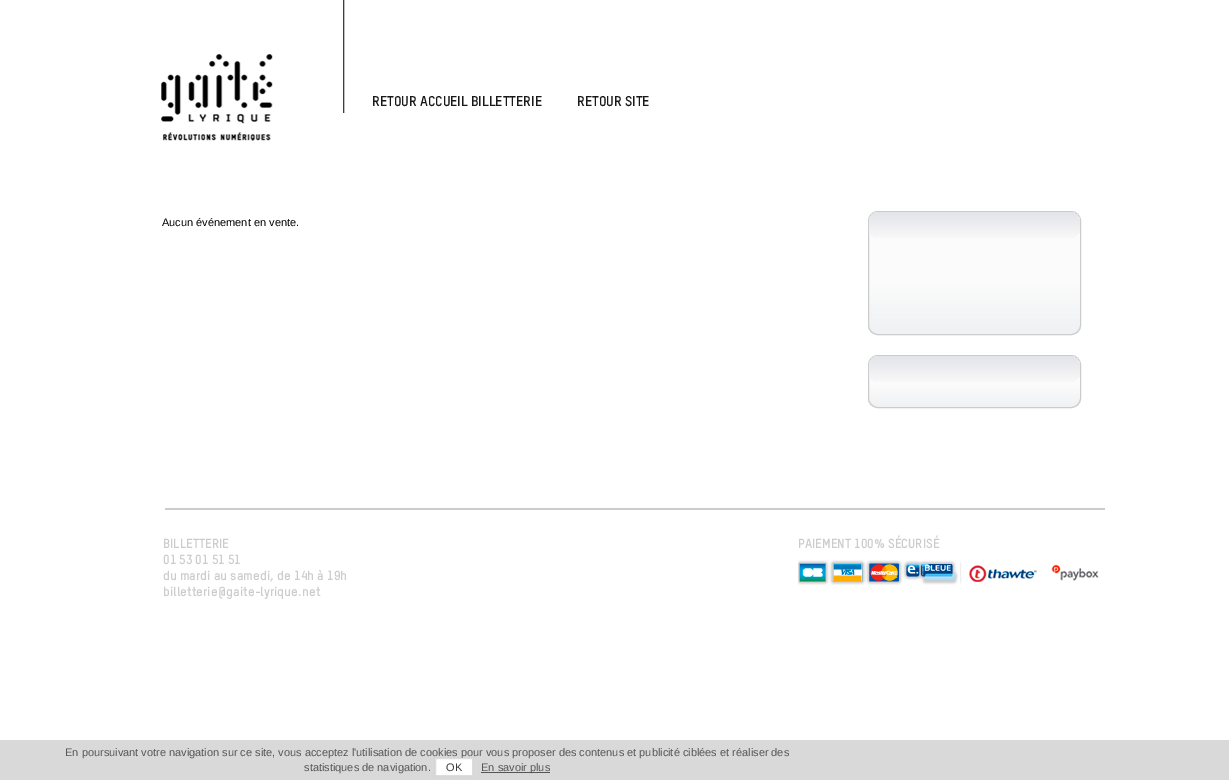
%!PS
<< /PageSize [1229 780] /PageUsesTransparency true >> setpagedevice
/alpha { dup .setfillconstantalpha .setstrokeconstantalpha } def
/roundrect { 5 dict begin { /r /h /w /y /x } { exch def } forall
  x r add y moveto x w add y 2 copy h add r arct x w add y h add x 1 index r arct
  x y h add x y r arct x y 2 copy exch w add exch r arct closepath end } def
/shadow { 12 dict begin { /a /b /q /h /w /y /x } { exch def } forall gsave /was 0 def
  9 -2 -9 { dup b mul 4 div /e exch def 1 sub .425 mul 2.718 exch exp 1 add a .99 .min exch div /now exch def
    1 1 now sub 1 was sub div sub alpha /was now def
    w h .min e 2 mul add 0 gt { x e sub y e sub w e 2 mul add h e 2 mul add
      q e add b .6 mul add w h .min 2 div e add .min 0 .max roundrect fill } if } for grestore end } def
/picture { 5 dict begin { /h /w /y /x /name } { exch def } forall
  gsave x y translate w h scale
  w h 8 [w 0 0 h 0 0] name (r) file false 3 colorimage grestore end } def
0 .pushpdf14devicefilter
0 780 translate 1 -1 scale
4 setmiterlimit
1 setgray
0 0 1229 780 rectfill
(img1.rgb) 161 0 184 141 picture
/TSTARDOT-Bold [14 0 0 -14 0 0] selectfont
0.098 setgray
372 106 moveto (RETOUR ACCUEIL BILLETTERIE) show
577 106 moveto (RETOUR SITE) show
/LiberationSans-Regular [11 0 0 -11 0 0] selectfont
0 setgray
162 226 moveto (Aucun événement en vente.) show
gsave
868 211 213 124 10 roundrect clip newpath
gsave newpath 868 212 moveto 1081 212 lineto 1081 334 lineto 868 334 lineto closepath clip newpath
<< /ShadingType 2 /ColorSpace /DeviceRGB /Coords [975 212 975 334] /Extend [true true] /Function << /FunctionType 3 /Domain [0 1] /Functions [<< /FunctionType 2 /Domain [0 1] /C0 [0.984 0.984 0.984] /C1 [0.984 0.984 0.984] /N 1 >> << /FunctionType 2 /Domain [0 1] /C0 [0.984 0.984 0.984] /C1 [0.941 0.945 0.957] /N 1 >>] /Bounds [0.58] /Encode [0 1 0 1] >> >> shfill grestore
grestore
0.8 setgray
868.5 211.5 212 123 9.5 roundrect stroke
gsave 869 212 211 26 10 roundrect clip newpath
<< /ShadingType 2 /ColorSpace /DeviceRGB /Coords [975 212 975 238] /Extend [true true] /Function << /FunctionType 2 /Domain [0 1] /C0 [0.89 0.894 0.914] /C1 [0.973 0.973 0.973] /N 1 >> >> shfill grestore
gsave
868 355 213 53 10 roundrect clip newpath
gsave newpath 868 356 moveto 1081 356 lineto 1081 407 lineto 868 407 lineto closepath clip newpath
<< /ShadingType 2 /ColorSpace /DeviceRGB /Coords [975 356 975 407] /Extend [true true] /Function << /FunctionType 3 /Domain [0 1] /Functions [<< /FunctionType 2 /Domain [0 1] /C0 [0.984 0.984 0.984] /C1 [0.984 0.984 0.984] /N 1 >> << /FunctionType 2 /Domain [0 1] /C0 [0.984 0.984 0.984] /C1 [0.941 0.945 0.957] /N 1 >>] /Bounds [0.58] /Encode [0 1 0 1] >> >> shfill grestore
grestore
868.5 355.5 212 52 9.5 roundrect stroke
gsave 869 356 211 26 10 roundrect clip newpath
<< /ShadingType 2 /ColorSpace /DeviceRGB /Coords [975 356 975 382] /Extend [true true] /Function << /FunctionType 2 /Domain [0 1] /C0 [0.89 0.894 0.914] /C1 [0.973 0.973 0.973] /N 1 >> >> shfill grestore
165 508 940 2 rectfill
/TSTARDOT-Bold [13 0 0 -13 0 0] selectfont
163 548 moveto (BILLETTERIE) show
163 564 moveto (01 53 01 51 51) show
163 580 moveto (du mardi au samedi, de 14h à 19h) show
163 596 moveto (billetterie@gaite-lyrique.net) show
(img2.rgb) 798 560 301 25 picture
798 548 moveto (PAIEMENT 100% SÉCURISÉ) show
0.851 setgray
0 740 1229 40 rectfill
/LiberationSans-Regular [11 0 0 -11 0 0] selectfont
0.333 setgray
65 756 moveto (En poursuivant votre navigation sur ce site, vous acceptez l'utilisation de cookies pour vous proposer des contenus et publicité ciblées et réaliser des) show
304 771 moveto (statistiques de navigation.) show
0.8 setgray
435 758 38 18 0 1 1 shadow
1 setgray
newpath 435.5 758.5 moveto 472.5 758.5 lineto 472.5 775.5 lineto 435.5 775.5 lineto closepath gsave fill grestore
0.867 setgray
stroke
0.231 setgray
446 771 moveto (OK) show
0.333 setgray
481 772 69 1 rectfill
481 771 moveto (En savoir plus) show
.poppdf14devicefilter showpage
